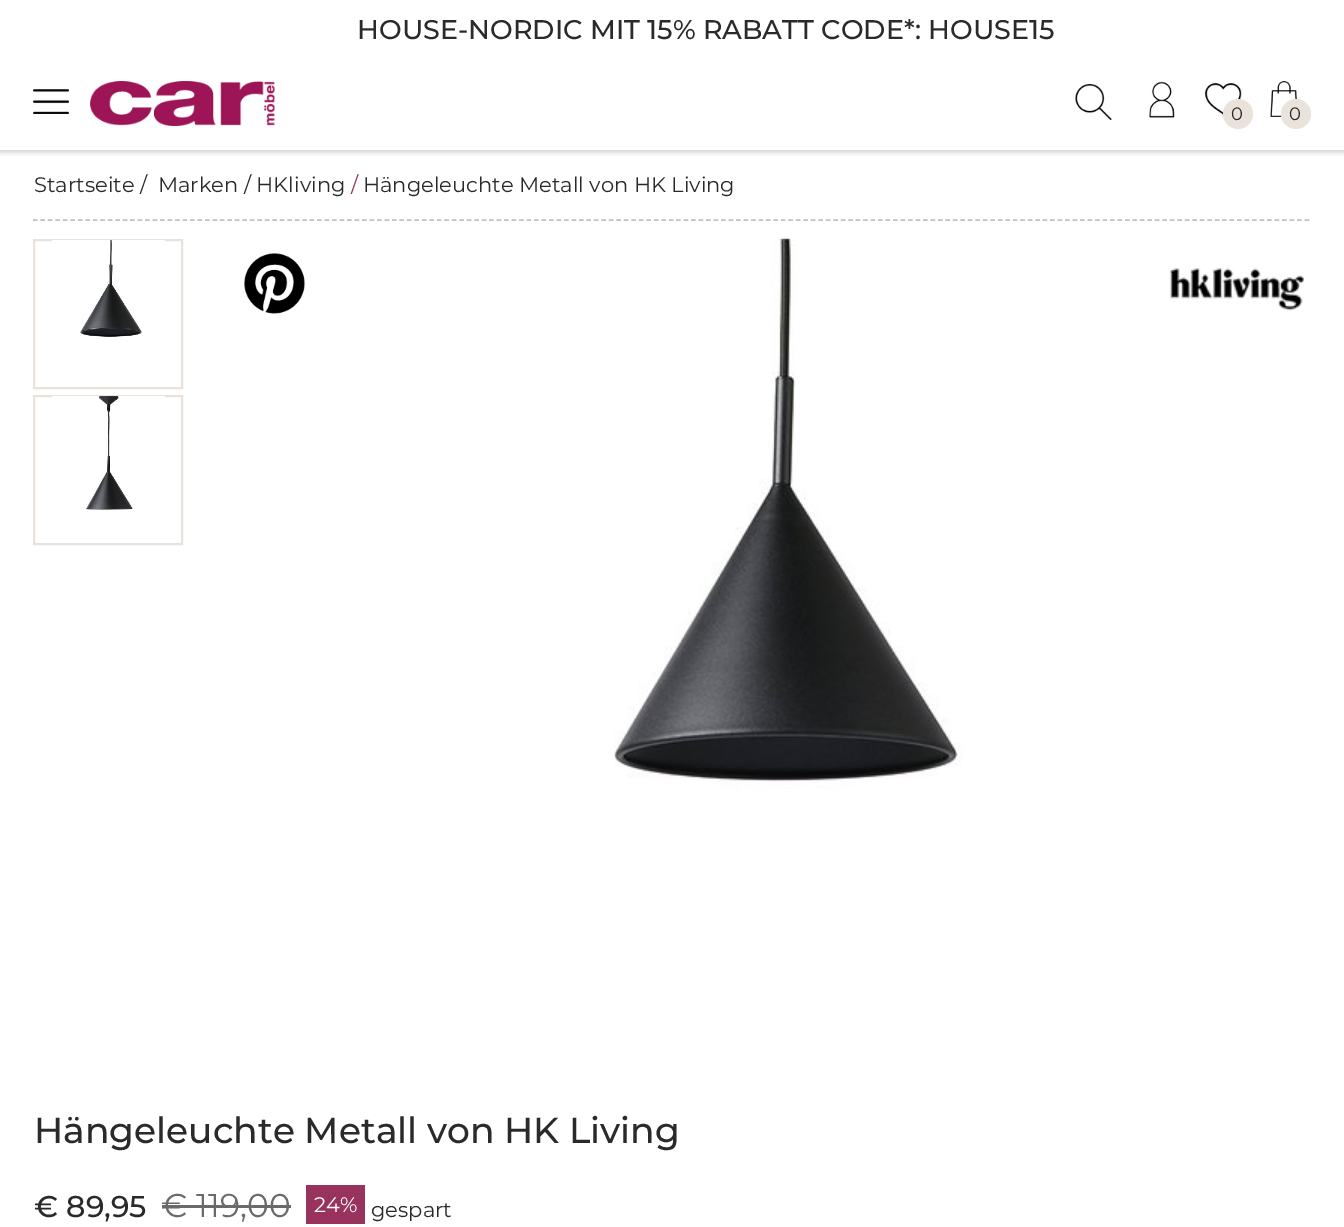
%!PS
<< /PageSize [1344 1227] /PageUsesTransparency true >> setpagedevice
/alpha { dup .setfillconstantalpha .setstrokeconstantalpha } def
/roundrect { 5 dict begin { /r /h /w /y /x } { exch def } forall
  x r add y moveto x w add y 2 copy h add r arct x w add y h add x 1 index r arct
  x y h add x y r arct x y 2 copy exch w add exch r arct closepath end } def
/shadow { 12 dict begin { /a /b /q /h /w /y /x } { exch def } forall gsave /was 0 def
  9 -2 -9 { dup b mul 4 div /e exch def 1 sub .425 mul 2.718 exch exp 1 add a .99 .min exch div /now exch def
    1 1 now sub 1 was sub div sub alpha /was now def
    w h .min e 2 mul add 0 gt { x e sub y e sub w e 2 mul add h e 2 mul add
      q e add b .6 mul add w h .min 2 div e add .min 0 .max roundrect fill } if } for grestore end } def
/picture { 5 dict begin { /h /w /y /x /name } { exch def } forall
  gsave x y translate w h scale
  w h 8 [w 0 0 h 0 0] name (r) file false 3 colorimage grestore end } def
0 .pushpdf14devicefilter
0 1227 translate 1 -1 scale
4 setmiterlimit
1 setgray
0 0 1344 1227 rectfill
gsave
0 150 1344 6 rectclip
0.145 0.196 0.216 setrgbcolor
0 2 1344 150 0 3 0.25 shadow
grestore
/Montserrat-Medium [27 0 0 -27 0 0] selectfont
0.165 setgray
357 39 moveto (HOUSE-NORDIC MIT 15% RABATT CODE*: HOUSE15) show
(img1.rgb) 33 89 36 25 picture
(img2.rgb) 90 81 185 45 picture
(img3.rgb) 1075 84 37 36 picture
(img4.rgb) 1149 81 26 37 picture
(img5.rgb) 1204 82 38 33 picture
0.918 0.89 0.863 setrgbcolor
newpath 1238 114 15 0 360 arc closepath fill
/Montserrat-Regular [18 0 0 -18 0 0] selectfont
0.165 setgray
1231 120 moveto (0) show
(img6.rgb) 1270 81 28 36 picture
0.918 0.89 0.863 setrgbcolor
newpath 1296 114 15 0 360 arc closepath fill
0.165 setgray
1289 120 moveto (0) show
0.753 setgray
1.5 setlinewidth
[4.5 2.98] 0 setdash
newpath 33 220 moveto 1311 220 lineto stroke
/Montserrat-Regular [21 0 0 -21 0 0] selectfont
0.165 setgray
34 192 moveto (Startseite /) show
158 192 moveto (Marken / HKliving) show
0.592 0.2 0.365 setrgbcolor
351 192 moveto (/) show
0.165 setgray
363 192 moveto (Hängeleuchte Metall von HK Living) show
0.918 0.89 0.863 setrgbcolor
2 setlinewidth
[] 0 setdash
34 240 148 148 rectstroke
(img7.rgb) 52 240 113 97 picture
34 396 148 148 rectstroke
(img8.rgb) 52 396 113 114 picture
(img9.rgb) 244 253 61 61 picture
(img10.rgb) 614 238 349 551 picture
(img11.rgb) 1169 268 135 43 picture
/Montserrat-Medium [36 0 0 -36 0 0] selectfont
0.165 setgray
34 1143 moveto (Hängeleuchte Metall von HK Living) show
/Montserrat-Medium [30 0 0 -30 0 0] selectfont
34 1217 moveto (€ 89,95) show
/Montserrat-Regular [33 0 0 -33 0 0] selectfont
0.416 setgray
161 1217 moveto (€ 119,00) show
162 1205 129 3 rectfill
0.592 0.2 0.365 setrgbcolor
306 1185 59 39 rectfill
/Montserrat-Regular [21 0 0 -21 0 0] selectfont
1 setgray
314 1212 moveto (24%) show
0.165 setgray
371 1217 moveto (gespart) show
.poppdf14devicefilter showpage
